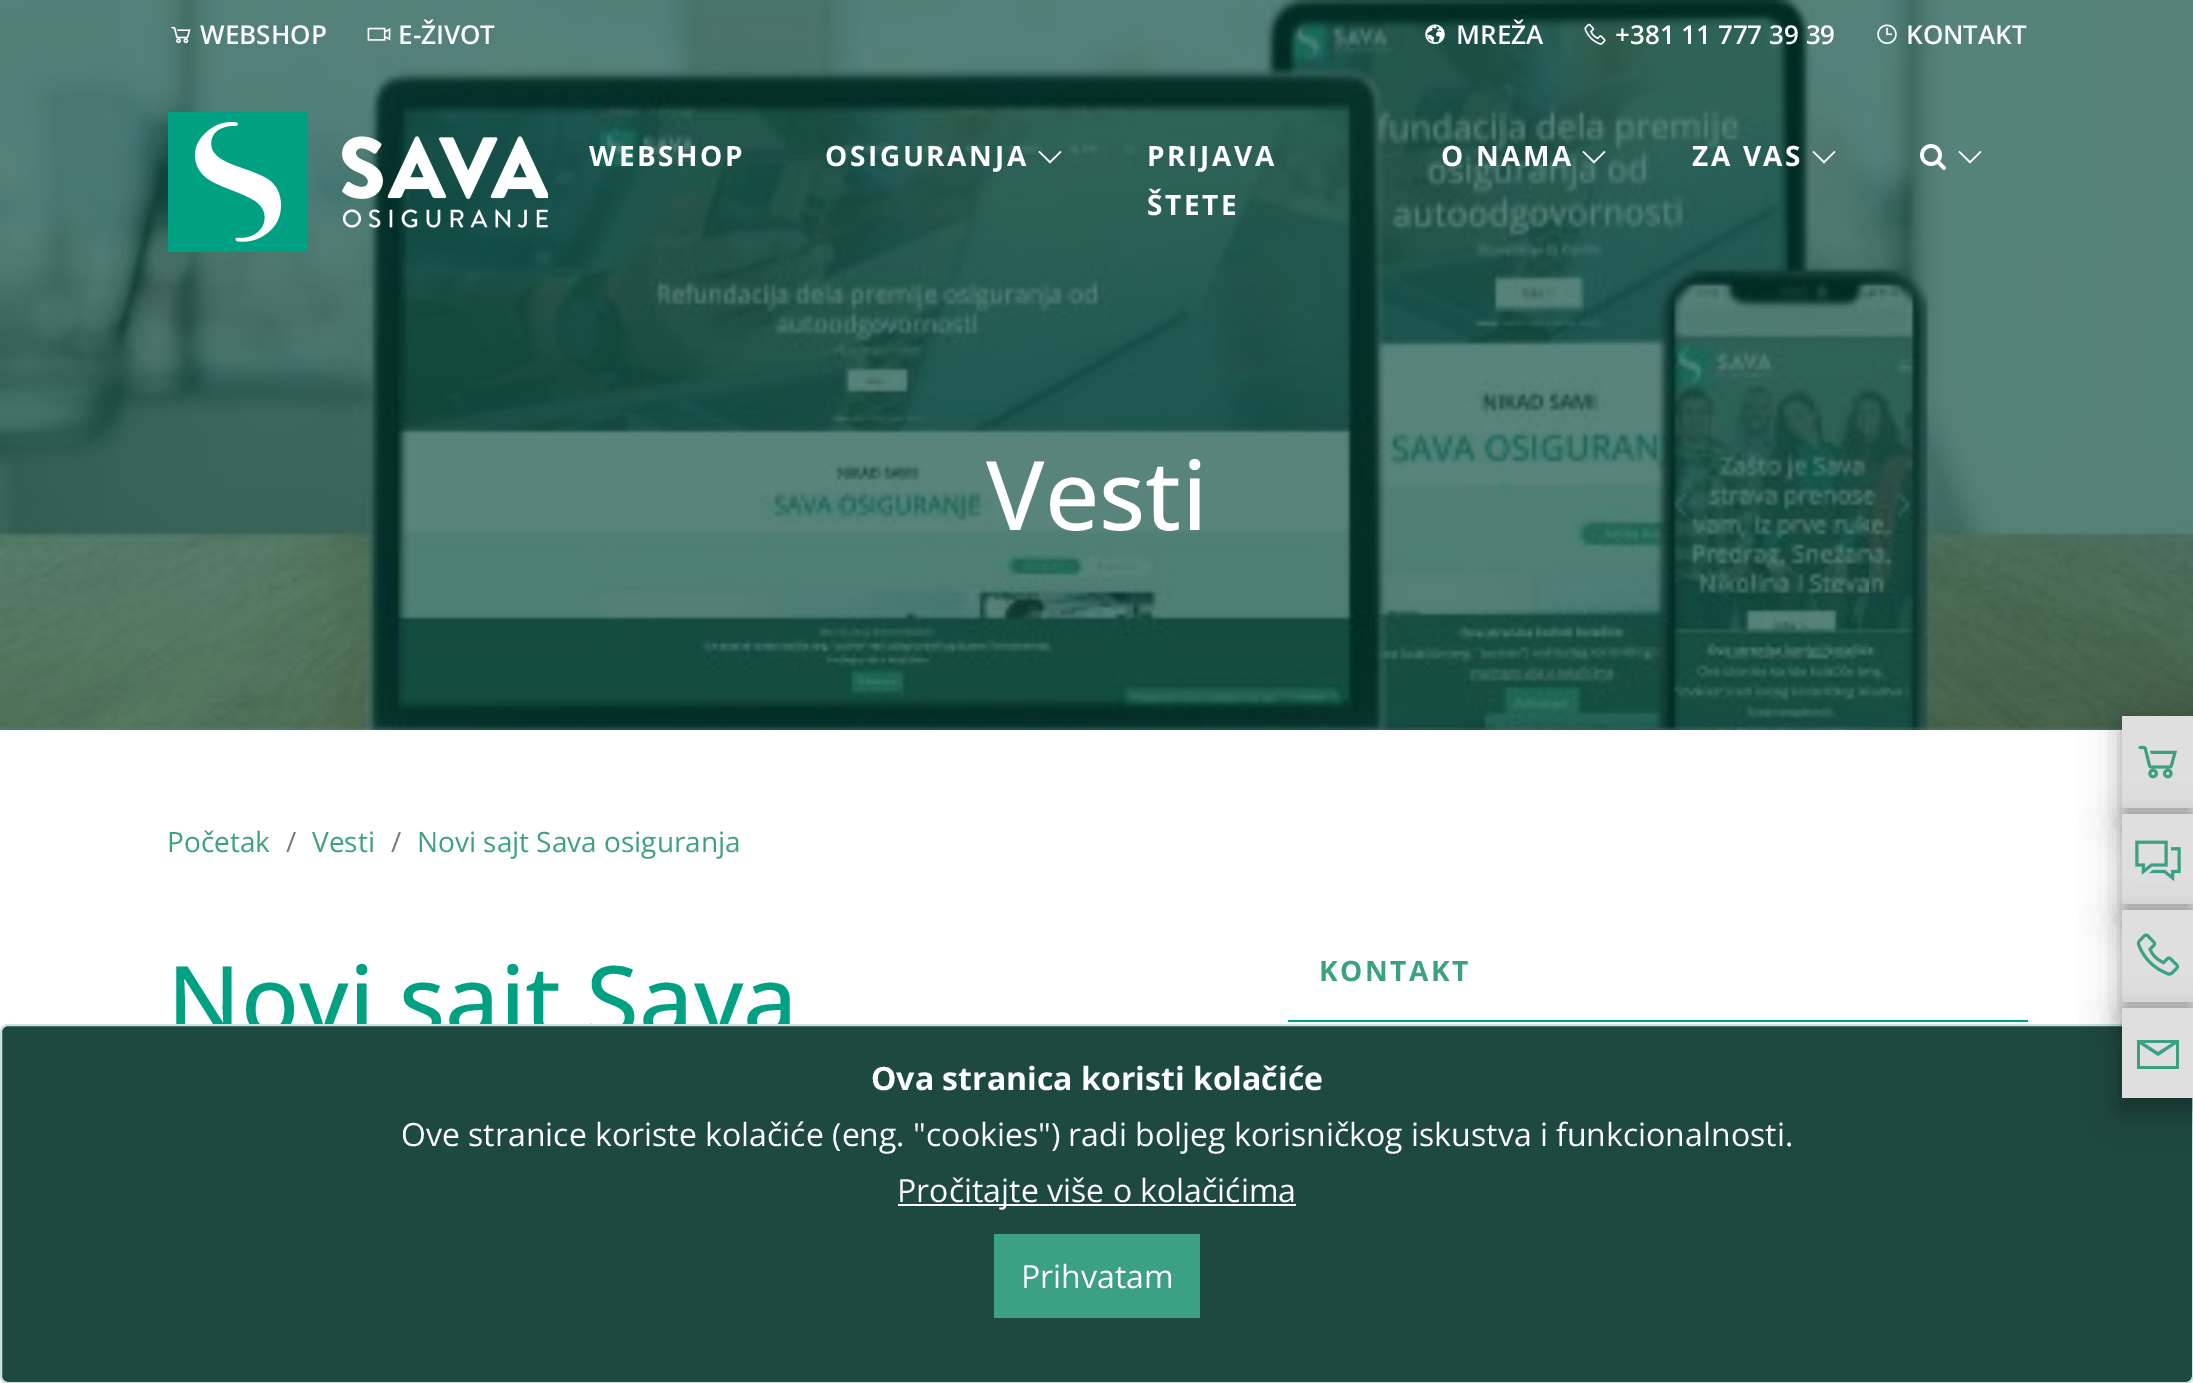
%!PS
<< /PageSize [2193 1383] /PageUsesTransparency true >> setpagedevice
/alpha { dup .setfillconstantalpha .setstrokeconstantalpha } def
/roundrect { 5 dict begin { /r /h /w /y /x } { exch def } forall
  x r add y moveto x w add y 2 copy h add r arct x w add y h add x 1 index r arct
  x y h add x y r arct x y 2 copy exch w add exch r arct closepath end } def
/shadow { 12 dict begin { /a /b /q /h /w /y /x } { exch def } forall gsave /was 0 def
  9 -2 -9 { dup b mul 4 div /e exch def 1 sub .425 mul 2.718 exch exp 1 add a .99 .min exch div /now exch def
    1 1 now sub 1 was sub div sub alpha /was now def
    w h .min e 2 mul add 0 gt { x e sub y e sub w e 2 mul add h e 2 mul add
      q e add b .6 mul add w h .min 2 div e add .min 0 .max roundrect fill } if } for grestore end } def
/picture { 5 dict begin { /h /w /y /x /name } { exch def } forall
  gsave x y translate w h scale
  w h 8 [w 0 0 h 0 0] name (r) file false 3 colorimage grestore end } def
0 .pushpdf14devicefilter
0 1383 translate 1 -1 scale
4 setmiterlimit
1 setgray
0 0 2193 1383 rectfill
0.349 0.518 0.486 setrgbcolor
0 726 2122 4 rectfill
(img8.rgb) 0 0 2193 730 picture
(img1.rgb) 171 26 20 18 picture
/OpenSans-SemiBold [26 0 0 -26 0 0] selectfont
1 setgray
200 44 moveto (WEBSHOP) show
(img2.rgb) 367 27 24 14 picture
398 44 moveto (E-ŽIVOT) show
(img3.rgb) 1425 24 20 20 picture
1456 44 moveto (MREŽA) show
(img4.rgb) 1584 23 22 22 picture
1615 44 moveto (+381 11 777 39 39) show
(img5.rgb) 1877 24 20 20 picture
1906 44 moveto (KONTAKT) show
(img6.rgb) 168 112 380 140 picture
/OpenSans-Bold [28 0 0 -28 0 0] selectfont
589 166 moveto 2.6 0 (WEBSHOP) ashow
825 166 moveto 2.6 0 (OSIGURANJA) ashow
newpath 1039.5 151 moveto 1038.5 152 lineto 1050 163.5 lineto 1061.5 152 lineto 1060.5 151 lineto 1050 161 lineto closepath fill
1147 166 moveto 2.6 0 (PRIJAVA) ashow
1147 215 moveto 2.6 0 (ŠTETE) ashow
1441 166 moveto 2.6 0 (O NAMA) ashow
newpath 1583.5 151 moveto 1582.5 152 lineto 1594 163.5 lineto 1605.5 152 lineto 1604.5 151 lineto 1594 161 lineto closepath fill
1692 166 moveto 2.6 0 (ZA VAS) ashow
newpath 1813.5 151 moveto 1812.5 152 lineto 1824 163.5 lineto 1835.5 152 lineto 1834.5 151 lineto 1824 161 lineto closepath fill
(img7.rgb) 1920 144 26 26 picture
newpath 1959.5 151 moveto 1958.5 152 lineto 1970 163.5 lineto 1981.5 152 lineto 1980.5 151 lineto 1970 161 lineto closepath fill
/OpenSans-Medium [96 0 0 -96 0 0] selectfont
986 530 moveto (Vesti) show
/OpenSans-Regular [28 0 0 -28 0 0] selectfont
0.235 0.627 0.51 setrgbcolor
167 852 moveto (Početak) show
0.467 0.482 0.49 setrgbcolor
286 852 moveto (/) show
0.235 0.627 0.51 setrgbcolor
312 852 moveto (Vesti) show
0.467 0.482 0.49 setrgbcolor
391 852 moveto (/) show
0.235 0.627 0.51 setrgbcolor
417 852 moveto (Novi sajt Sava osiguranja) show
/OpenSans-Medium [96 0 0 -96 0 0] selectfont
0 0.631 0.51 setrgbcolor
167 1035 moveto (Novi sajt Sava) show
1288 1020 740 2 rectfill
/OpenSans-Bold [28 0 0 -28 0 0] selectfont
0.235 0.627 0.51 setrgbcolor
1319 981 moveto 2.6 0 (KONTAKT) ashow
0 setgray
2122 728 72 92 0 20 0.2 shadow
2122 724 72 92 0 8 0.2 shadow
0.875 setgray
2122 716 71 92 rectfill
0 setgray
2122 826 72 90 0 20 0.2 shadow
(img9.rgb) 2138 745 39 34 picture
2122 822 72 90 0 8 0.2 shadow
0.875 setgray
2122 814 71 90 rectfill
0.114 0.286 0.251 setrgbcolor
1 1025 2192 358 7 roundrect gsave fill grestore
0.784 0.894 0.863 setrgbcolor
2 setlinewidth
stroke
0 setgray
2122 922 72 92 0 20 0.2 shadow
(img10.rgb) 2135 840 46 42 picture
2122 918 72 92 0 8 0.2 shadow
0.875 setgray
2122 910 71 92 rectfill
0 setgray
2122 1020 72 90 0 20 0.2 shadow
(img11.rgb) 2136 933 44 43 picture
2122 1016 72 90 0 8 0.2 shadow
0.875 setgray
2122 1008 71 90 rectfill
0.235 0.627 0.51 setrgbcolor
newpath 2137 1040 moveto 2137 1069 lineto 2179 1069 lineto 2179 1040 lineto closepath 2144 1043 moveto 2172 1043 lineto 2158 1052 lineto closepath 2140 1044 moveto 2158 1056 lineto 2176 1044 lineto 2176 1066 lineto 2140 1066 lineto closepath fill
/OpenSans-Bold [32 0 0 -32 0 0] selectfont
1 setgray
871 1090 moveto (Ova stranica koristi kolačiće) show
/OpenSans-Regular [32 0 0 -32 0 0] selectfont
401 1146 moveto (Ove stranice koriste kolačiće \(eng. "cookies"\) radi boljeg korisničkog iskustva i funkcionalnosti.) show
898 1204 398 2 rectfill
897 1202 moveto (Pročitajte više o kolačićima) show
0.235 0.627 0.51 setrgbcolor
994 1234 206 84 rectfill
1 setgray
1021 1288 moveto (Prihvatam) show
.poppdf14devicefilter showpage
